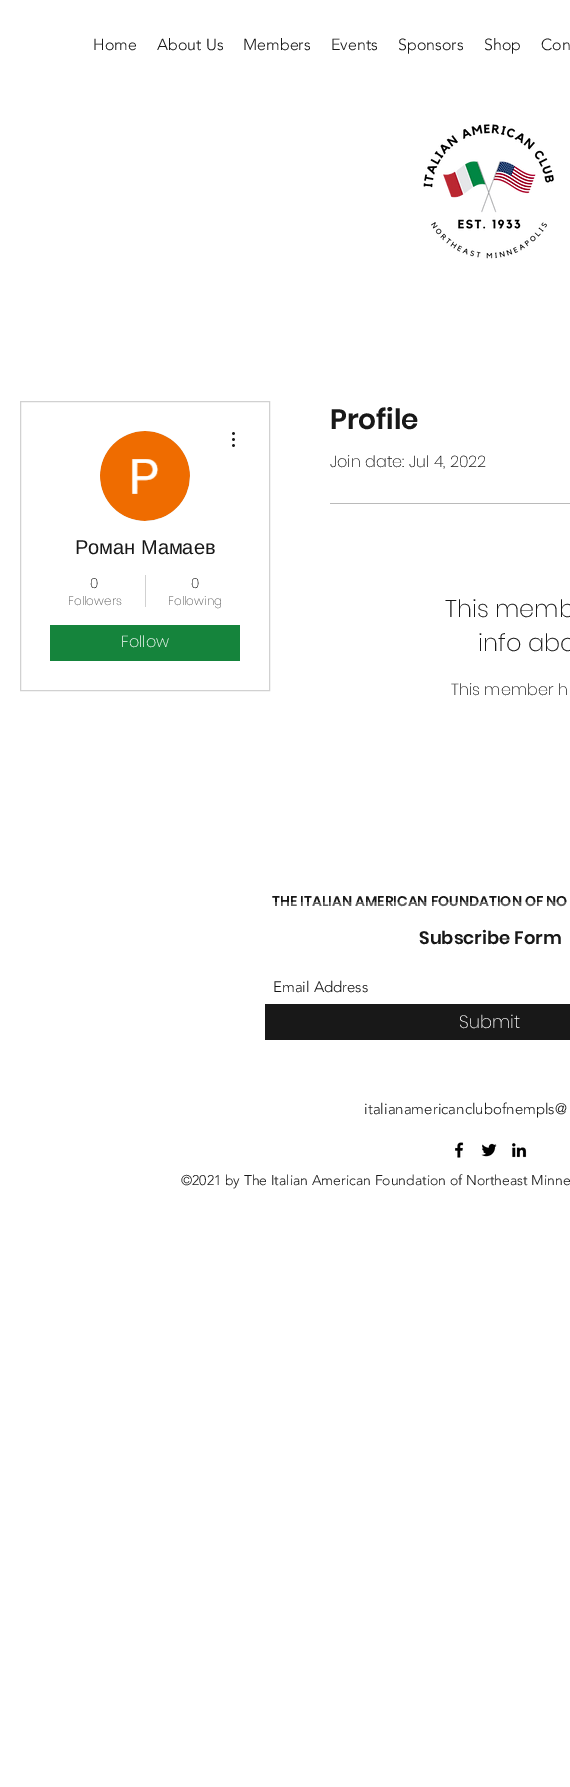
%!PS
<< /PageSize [570 1787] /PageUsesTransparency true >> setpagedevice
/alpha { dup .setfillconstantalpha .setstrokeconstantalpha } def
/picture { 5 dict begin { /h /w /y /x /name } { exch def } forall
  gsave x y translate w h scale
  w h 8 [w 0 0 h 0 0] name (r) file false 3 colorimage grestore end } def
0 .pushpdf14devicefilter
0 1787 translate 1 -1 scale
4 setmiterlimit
1 setgray
0 0 570 1787 rectfill
/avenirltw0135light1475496-Light [16 0 0 -16 0 0] selectfont
0.094 setgray
93 50 moveto (Home) show
157 50 moveto (About Us) show
243 50 moveto (Members) show
331 50 moveto (Events) show
398 50 moveto (Sponsors) show
484 50 moveto (Shop) show
541 50 moveto (Con) show
(img1.rgb) 423 124 131 135 picture
0.82 setgray
20.5 401.5 249 289 rectstroke
0.847 setgray
newpath 145 476 45 0 360 arc closepath fill
(img2.rgb) 100 431 90 90 picture
(img3.rgb) 232 432 3 15 picture
/LiberationSans-Regular [20 0 0 -20 0 0] selectfont
0.094 setgray
75 554 moveto (Роман Мамаев) show
/Poppins-ExtraLight [14 0 0 -14 0 0] selectfont
90 588 moveto (0) show
/Poppins-ExtraLight [12 0 0 -12 0 0] selectfont
0.365 setgray
68 605 moveto (Followers) show
0.82 setgray
145 575 1 32 rectfill
/Poppins-ExtraLight [14 0 0 -14 0 0] selectfont
0.094 setgray
191 588 moveto (0) show
/Poppins-ExtraLight [12 0 0 -12 0 0] selectfont
0.365 setgray
168 605 moveto (Following) show
0.082 0.518 0.235 setrgbcolor
50 625 190 36 rectfill
/Poppins-ExtraLight [16 0 0 -16 0 0] selectfont
1 setgray
121 647 moveto (Follow) show
/Poppins-SemiBold [28 0 0 -28 0 0] selectfont
0.094 setgray
330 429 moveto (Profile) show
/Poppins-ExtraLight [16 0 0 -16 0 0] selectfont
330 467 moveto (Join date: Jul 4, 2022) show
0.729 setgray
330 503 240 1 rectfill
/Poppins-ExtraLight [24 0 0 -24 0 0] selectfont
0.094 setgray
445 617 moveto (This memb) show
478 651 moveto (info abo) show
/Poppins-ExtraLight [16 0 0 -16 0 0] selectfont
451 695 moveto (This member h) show
/Poppins-SemiBold [14 0 0 -14 0 0] selectfont
272 906 moveto (THE ITALIAN AMERICAN FOUNDATION OF NO) show
0.3 alpha
1 setgray
274 902 293 5 rectfill
/Poppins-SemiBold [18 0 0 -18 0 0] selectfont
1 alpha
0.094 setgray
419 944 moveto (Subscribe Form) show
265 1004 305 36 rectfill
/avenirltw0135light1475496-Light [15 0 0 -15 0 0] selectfont
273 992 moveto (Email Address) show
/Poppins-ExtraLight [18 0 0 -18 0 0] selectfont
1 setgray
459 1028 moveto (Submit) show
/avenirltw0135light1475496-Light [15 0 0 -15 0 0] selectfont
0.094 setgray
364 1114 moveto (italianamericanclubofnempls@) show
(img4.rgb) 455 1142 9 16 picture
(img5.rgb) 481 1143 16 14 picture
(img6.rgb) 512 1143 15 15 picture
/avenirltw0135light1475496-Light [14 0 0 -14 0 0] selectfont
181 1185 moveto (©2021 by The Italian American Foundation of Northeast Minne) show
.poppdf14devicefilter showpage
